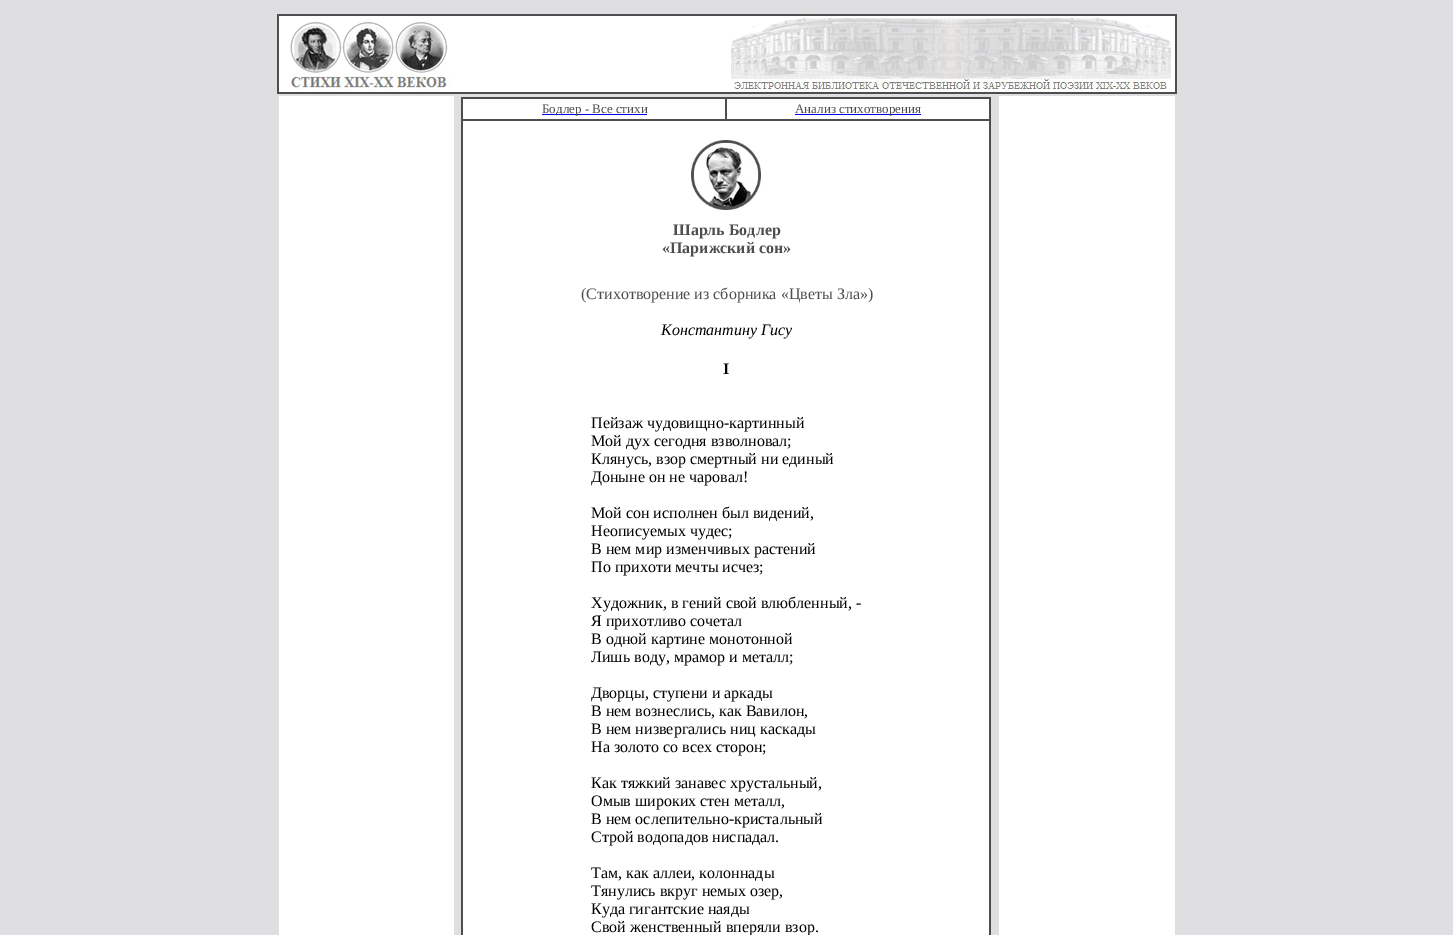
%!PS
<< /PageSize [1453 935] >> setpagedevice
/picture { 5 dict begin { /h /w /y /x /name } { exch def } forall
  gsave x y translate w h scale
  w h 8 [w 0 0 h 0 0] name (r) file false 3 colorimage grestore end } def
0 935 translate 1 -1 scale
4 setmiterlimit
0.875 0.875 0.882 setrgbcolor
0 0 1453 935 rectfill
(img1.rgb) 277 14 900 80 picture
1 setgray
279 96 175 839 rectfill
0.31 0.302 0.302 setrgbcolor
461 97 530 838 rectfill
1 setgray
463 99 262 20 rectfill
0 0 0.933 setrgbcolor
542 114 105 1 rectfill
/LiberationSerif-Regular [13 0 0 -13 0 0] selectfont
0.31 0.302 0.302 setrgbcolor
542 113 moveto (Бодлер - Все стихи) show
1 setgray
727 99 262 20 rectfill
0 0 0.933 setrgbcolor
795 114 126 1 rectfill
0.31 0.302 0.302 setrgbcolor
795 113 moveto (Анализ стихотворения) show
1 setgray
463 121 526 814 rectfill
(img2.rgb) 691 140 70 70 picture
/LiberationSerif-Bold [16 0 0 -16 0 0] selectfont
0.31 0.302 0.302 setrgbcolor
673 235 moveto (Шарль Бодлер) show
662 253 moveto («Парижский сон») show
/LiberationSerif-Regular [16 0 0 -16 0 0] selectfont
581 299 moveto (\(Стихотворение из сборника «Цветы Зла»\)) show
/LiberationSerif-Italic [16 0 0 -16 0 0] selectfont
0 setgray
661 335 moveto (Константину Гису) show
/LiberationSerif-Bold [16 0 0 -16 0 0] selectfont
723 374 moveto (I) show
/LiberationSerif-Regular [16 0 0 -16 0 0] selectfont
591 428 moveto (Пейзаж чудовищно-картинный) show
591 446 moveto (Мой дух сегодня взволновал;) show
591 464 moveto (Клянусь, взор смертный ни единый) show
591 482 moveto (Доныне он не чаровал!) show
591 518 moveto (Мой сон исполнен был видений,) show
591 536 moveto (Неописуемых чудес;) show
591 554 moveto (В нем мир изменчивых растений) show
591 572 moveto (По прихоти мечты исчез;) show
591 608 moveto (Художник, в гений свой влюбленный, -) show
591 626 moveto (Я прихотливо сочетал) show
591 644 moveto (В одной картине монотонной) show
591 662 moveto (Лишь воду, мрамор и металл;) show
591 698 moveto (Дворцы, ступени и аркады) show
591 716 moveto (В нем вознеслись, как Вавилон,) show
591 734 moveto (В нем низвергались ниц каскады) show
591 752 moveto (На золото со всех сторон;) show
591 788 moveto (Как тяжкий занавес хрустальный,) show
591 806 moveto (Омыв широких стен металл,) show
591 824 moveto (В нем ослепительно-кристальный) show
591 842 moveto (Строй водопадов ниспадал.) show
591 878 moveto (Там, как аллеи, колоннады) show
591 896 moveto (Тянулись вкруг немых озер,) show
591 914 moveto (Куда гигантские наяды) show
591 932 moveto (Свой женственный вперяли взор.) show
1 setgray
999 96 176 839 rectfill
showpage
